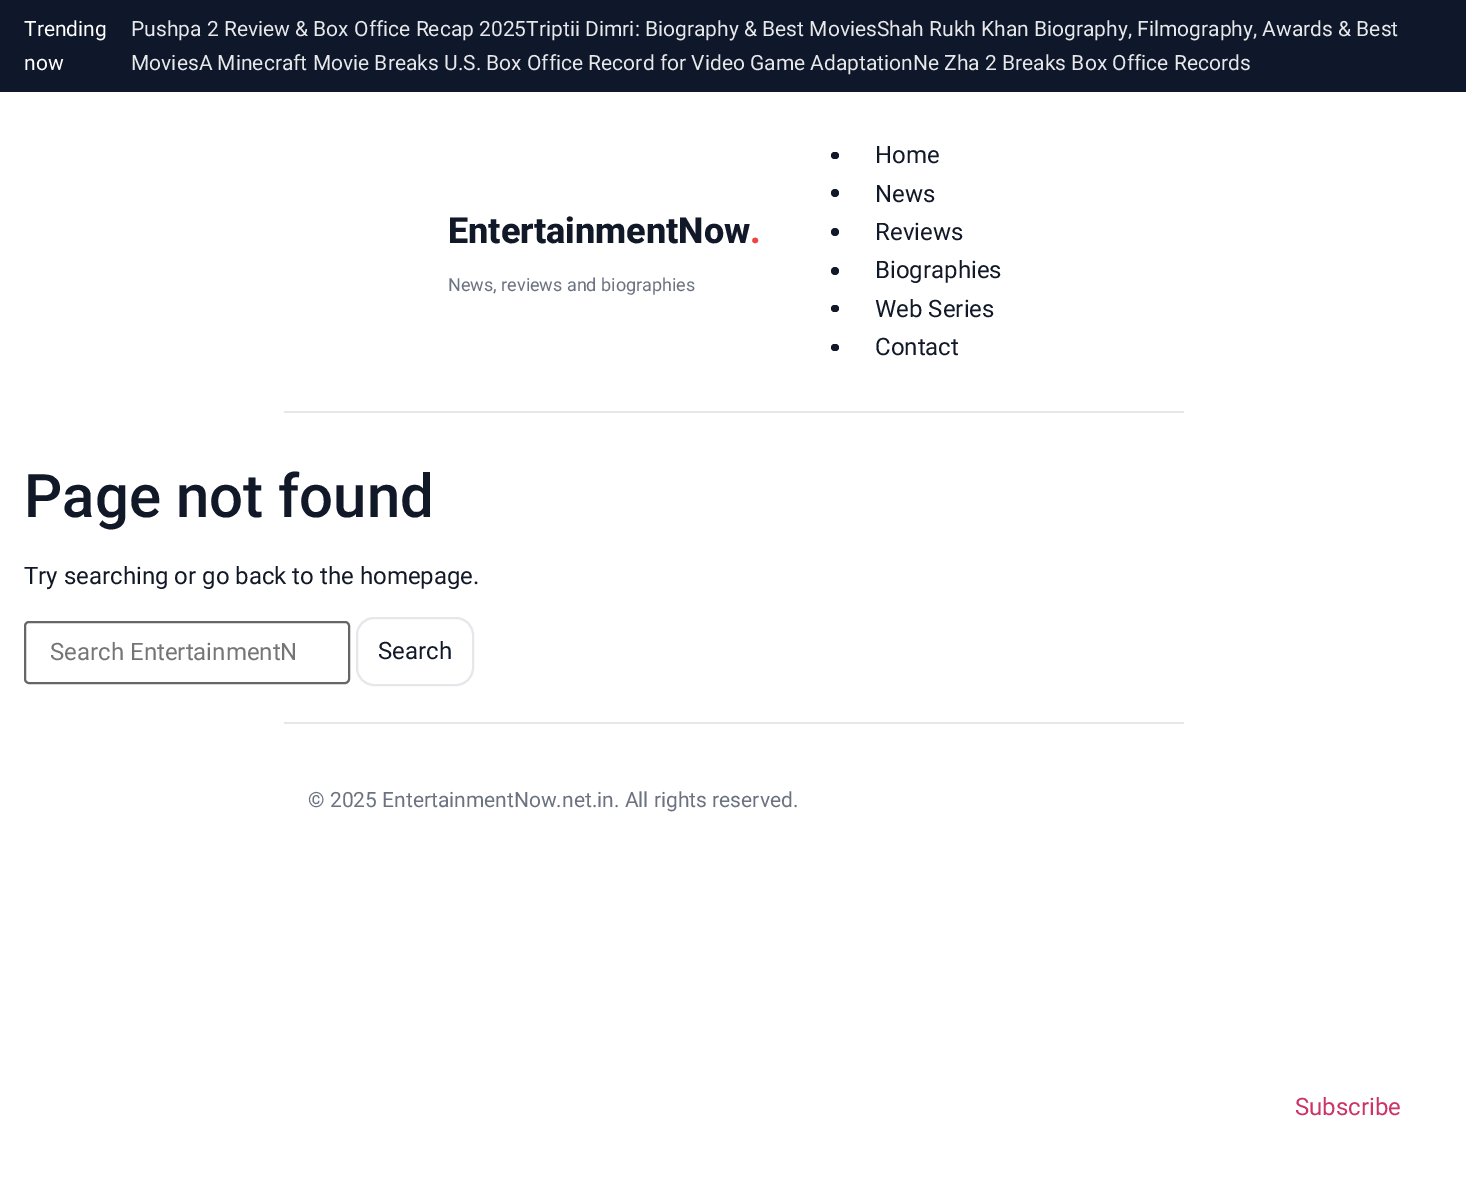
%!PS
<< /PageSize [1466 1177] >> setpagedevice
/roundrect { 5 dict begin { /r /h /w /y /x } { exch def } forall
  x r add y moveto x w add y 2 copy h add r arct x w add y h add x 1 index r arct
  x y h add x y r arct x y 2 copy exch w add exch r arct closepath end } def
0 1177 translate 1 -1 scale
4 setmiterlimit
1 setgray
0 0 1466 1177 rectfill
0.059 0.09 0.165 setrgbcolor
0 0 1466 92 rectfill
/Roboto-Regular [21 0 0 -21 0 0] selectfont
1 setgray
24 36 moveto (Trending) show
24 70 moveto (now) show
0.906 0.91 0.918 setrgbcolor
131 36 moveto (Pushpa 2 Review & Box Office Recap 2025Triptii Dimri: Biography & Best MoviesShah Rukh Khan Biography, Filmography, Awards & Best) show
131 70 moveto (MoviesA Minecraft Movie Breaks U.S. Box Office Record for Video Game AdaptationNe Zha 2 Breaks Box Office Records) show
0.898 0.906 0.922 setrgbcolor
284 411 900 2 rectfill
/Roboto-ExtraBold [36 0 0 -36 0 0] selectfont
0.067 0.094 0.153 setrgbcolor
448 243 moveto (EntertainmentNow) show
0.937 0.267 0.267 setrgbcolor
750 243 moveto (.) show
/Roboto-Regular [18 0 0 -18 0 0] selectfont
0.42 0.447 0.502 setrgbcolor
448 291 moveto (News, reviews and biographies) show
0.067 0.094 0.153 setrgbcolor
831 152 8 7 3.5 roundrect fill
/Roboto-Regular [24 0 0 -24 0 0] selectfont
875 163 moveto (Home) show
newpath 835 193 4 0 360 arc closepath fill
875 202 moveto (News) show
newpath 835 232 4 0 360 arc closepath fill
875 240 moveto (Reviews) show
newpath 835 271 4 0 360 arc closepath fill
875 278 moveto (Biographies) show
831 305 8 7 3.5 roundrect fill
875 317 moveto (Web Series) show
831 344 8 7 3.5 roundrect fill
875 355 moveto (Contact) show
/Roboto-Medium [60 0 0 -60 0 0] selectfont
24 517 moveto (Page not found) show
/Roboto-Regular [24 0 0 -24 0 0] selectfont
24 584 moveto (Try searching or go back to the homepage.) show
0.4 setgray
2 setlinewidth
25 622 324 61 4 roundrect stroke
0.459 setgray
50 660 moveto (Search EntertainmentN) show
0.898 0.906 0.922 setrgbcolor
357 618 116 67 17 roundrect stroke
0.067 0.094 0.153 setrgbcolor
378 659 moveto (Search) show
0.898 0.906 0.922 setrgbcolor
284 722 900 2 rectfill
/Roboto-Regular [21 0 0 -21 0 0] selectfont
0.42 0.447 0.502 setrgbcolor
308 807 moveto (© 2025 EntertainmentNow.net.in. All rights reserved.) show
/Roboto-Regular [24 0 0 -24 0 0] selectfont
0.8 0.2 0.4 setrgbcolor
1295 1115 moveto (Subscribe) show
showpage
